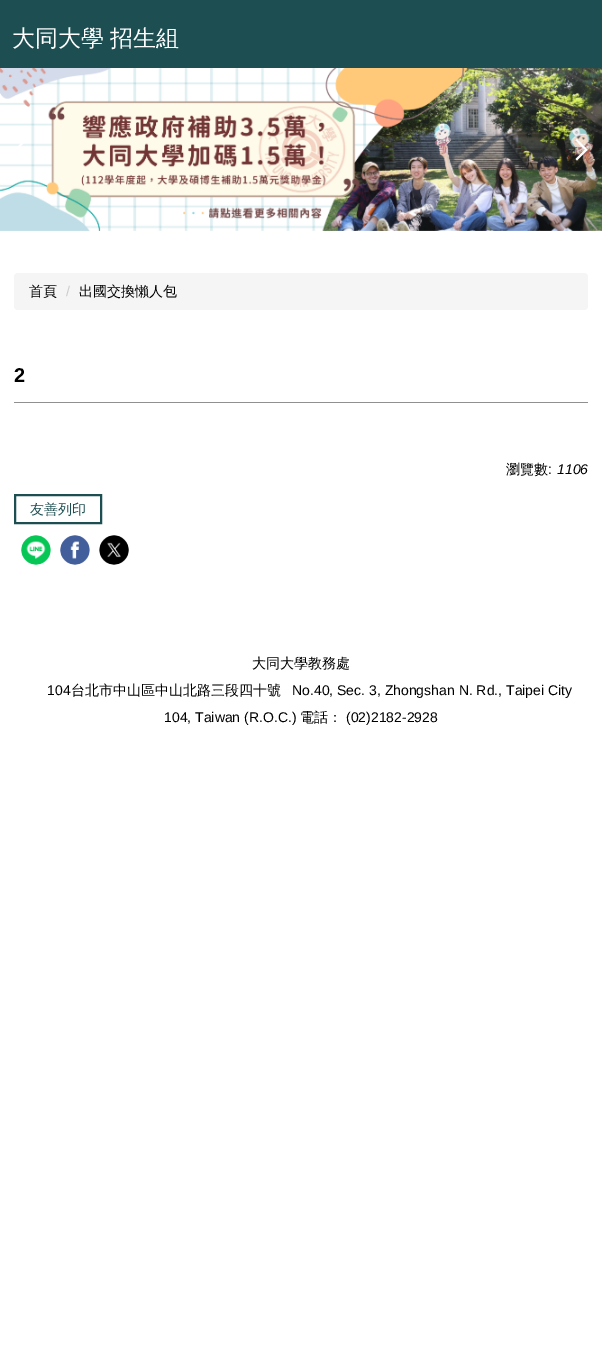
%!PS
<< /PageSize [602 1358] >> setpagedevice
/roundrect { 5 dict begin { /r /h /w /y /x } { exch def } forall
  x r add y moveto x w add y 2 copy h add r arct x w add y h add x 1 index r arct
  x y h add x y r arct x y 2 copy exch w add exch r arct closepath end } def
/picture { 5 dict begin { /h /w /y /x /name } { exch def } forall
  gsave x y translate w h scale
  w h 8 [w 0 0 h 0 0] name (r) file false 3 colorimage grestore end } def
0 1358 translate 1 -1 scale
4 setmiterlimit
1 setgray
0 0 602 1358 rectfill
0.114 0.31 0.322 setrgbcolor
0 0 602 68 rectfill
/WenQuanYiZenHei-Medium [23 0 0 -23 0 0] selectfont
1 setgray
12 46 moveto -1 0 32 (大同大學 招生組) widthshow
(img1.rgb) 0 68 602 163 picture
newpath 16 151 moveto 14.5 150 lineto 25 139 lineto 26.5 140.5 lineto closepath fill
newpath 577 139 moveto 587.5 150 lineto 586 151 lineto 575.5 140.5 lineto closepath fill
newpath 586 148.5 moveto 587.5 150 lineto 577 160.5 lineto 575.5 159 lineto closepath fill
0.961 setgray
14 273 574 37 4 roundrect fill
/WenQuanYiZenHei-Medium [14 0 0 -14 0 0] selectfont
0 setgray
29 296 moveto (首頁) show
/LiberationSans-Regular [14 0 0 -14 0 0] selectfont
0.8 setgray
66 296 moveto (/) show
/WenQuanYiZenHei-Medium [14 0 0 -14 0 0] selectfont
0 setgray
79 296 moveto (出國交換懶人包) show
0.561 0.565 0.569 setrgbcolor
14 402 574 1 rectfill
/LiberationSans-Bold [20 0 0 -20 0 0] selectfont
0 setgray
14 382 moveto (2) show
/WenQuanYiZenHei-Medium [14 0 0 -14 0 0] selectfont
506 474 moveto (瀏覽數) show
/LiberationSans-Regular [14 0 0 -14 0 0] selectfont
548 474 moveto (:) show
/LiberationSans-Italic [14 0 0 -14 0 0] selectfont
557 474 moveto (1106) show
0.114 0.31 0.322 setrgbcolor
2 setlinewidth
15 495 86 28 rectstroke
/WenQuanYiZenHei-Medium [14 0 0 -14 0 0] selectfont
30 514 moveto (友善列印) show
(img2.rgb) 21 535 30 30 picture
(img3.rgb) 60 535 30 30 picture
(img4.rgb) 99 535 30 30 picture
0 setgray
252 668 moveto (大同大學教務處) show
/LiberationSans-Regular [14 0 0 -14 0 0] selectfont
47 695 moveto (104) show
/WenQuanYiZenHei-Medium [14 0 0 -14 0 0] selectfont
71 695 moveto (台北市中山區中山北路三段四十號) show
/LiberationSans-Regular [14 0 0 -14 0 0] selectfont
292 695 moveto (No.40, Sec. 3, Zhongshan N. Rd., Taipei City) show
164 722 moveto (104, Taiwan \(R.O.C.\)) show
/WenQuanYiZenHei-Medium [14 0 0 -14 0 0] selectfont
300 722 moveto (電話：) show
/LiberationSans-Regular [14 0 0 -14 0 0] selectfont
346 722 moveto (\(02\)2182-2928) show
showpage
